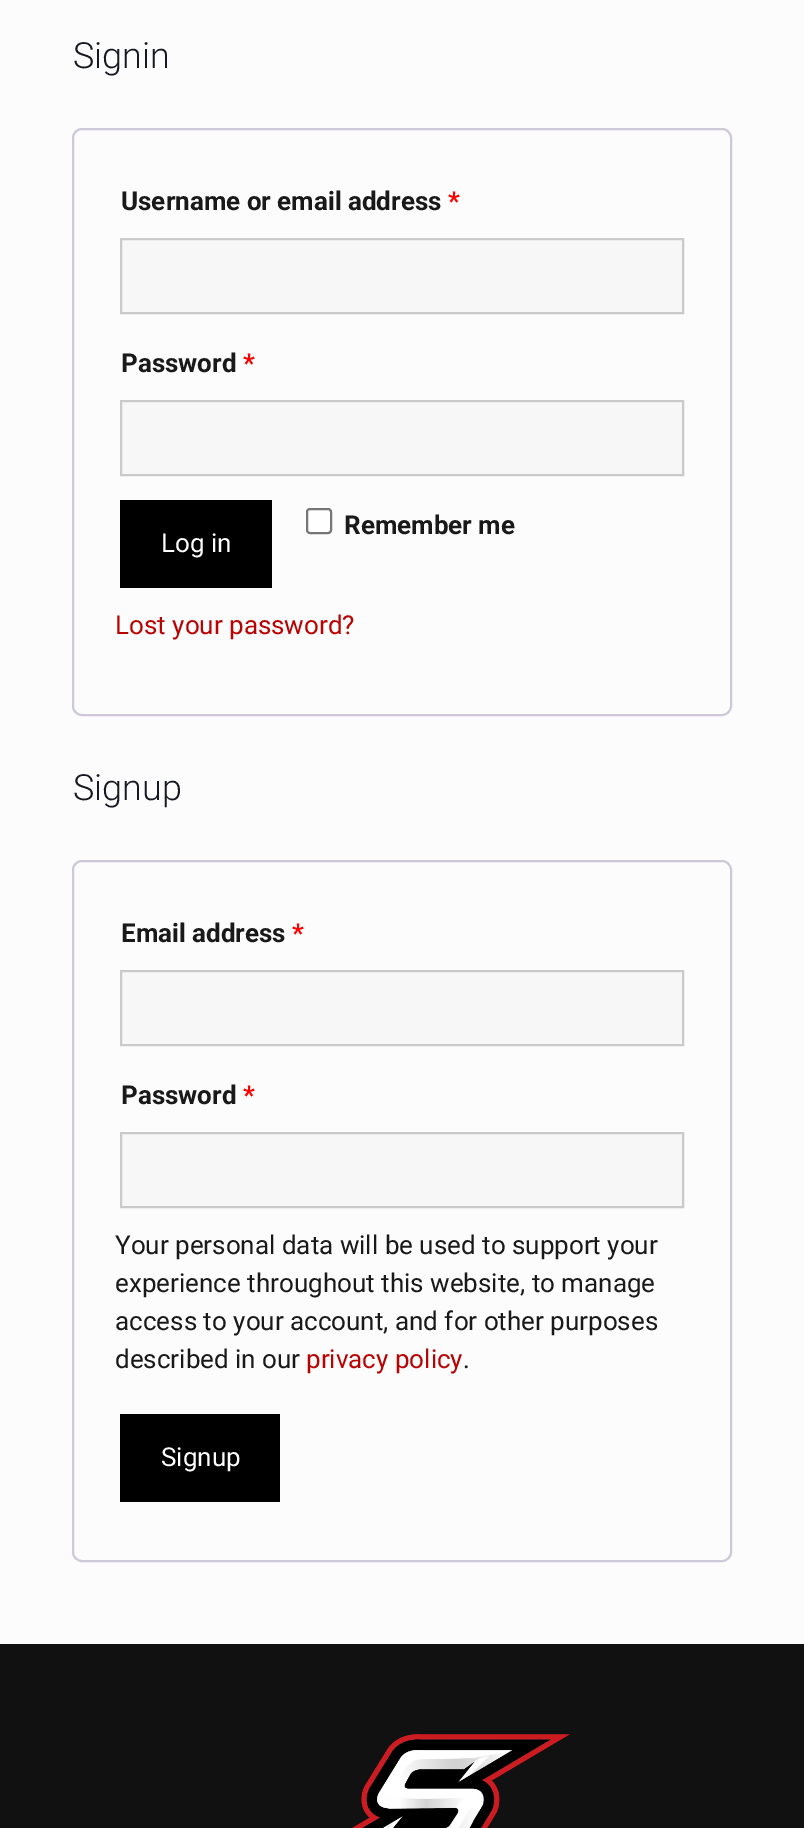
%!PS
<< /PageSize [804 1828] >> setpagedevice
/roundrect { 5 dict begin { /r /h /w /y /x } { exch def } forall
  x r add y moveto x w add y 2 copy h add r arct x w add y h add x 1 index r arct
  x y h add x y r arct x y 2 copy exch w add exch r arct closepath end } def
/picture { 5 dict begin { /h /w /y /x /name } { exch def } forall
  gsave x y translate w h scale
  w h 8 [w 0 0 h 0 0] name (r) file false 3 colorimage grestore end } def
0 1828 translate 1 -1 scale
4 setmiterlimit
0.988 setgray
0 0 804 1828 rectfill
/Roboto-Light [36 0 0 -36 0 0] selectfont
0.086 0.098 0.133 setrgbcolor
73 68 moveto (Signin) show
0.812 0.784 0.847 setrgbcolor
2 setlinewidth
73 129 658 586 9 roundrect stroke
/Roboto-Bold [26 0 0 -26 0 0] selectfont
0.098 setgray
121 210 moveto (Username or email address) show
1 0 0 setrgbcolor
448 210 moveto (*) show
0.969 setgray
newpath 121 239 moveto 683 239 lineto 683 313 lineto 121 313 lineto closepath gsave fill grestore
0.792 setgray
stroke
0.098 setgray
121 372 moveto (Password) show
1 0 0 setrgbcolor
243 372 moveto (*) show
0.969 setgray
newpath 121 401 moveto 683 401 lineto 683 475 lineto 121 475 lineto closepath gsave fill grestore
0.792 setgray
stroke
1 setgray
307 509 24 24 3 roundrect gsave fill grestore
0.463 setgray
stroke
0.098 setgray
344 534 moveto (Remember me) show
0 setgray
120 500 152 88 rectfill
/Roboto-Regular [26 0 0 -26 0 0] selectfont
1 setgray
161 552 moveto (Log in) show
0.725 0.012 0.012 setrgbcolor
115 634 moveto (Lost your password?) show
/Roboto-Light [36 0 0 -36 0 0] selectfont
0.086 0.098 0.133 setrgbcolor
73 800 moveto (Signup) show
0.812 0.784 0.847 setrgbcolor
73 861 658 700 9 roundrect stroke
/Roboto-Bold [26 0 0 -26 0 0] selectfont
0.098 setgray
121 942 moveto (Email address) show
1 0 0 setrgbcolor
292 942 moveto (*) show
0.969 setgray
newpath 121 971 moveto 683 971 lineto 683 1045 lineto 121 1045 lineto closepath gsave fill grestore
0.792 setgray
stroke
0.098 setgray
121 1104 moveto (Password) show
1 0 0 setrgbcolor
243 1104 moveto (*) show
0.969 setgray
newpath 121 1133 moveto 683 1133 lineto 683 1207 lineto 121 1207 lineto closepath gsave fill grestore
0.792 setgray
stroke
/Roboto-Regular [26 0 0 -26 0 0] selectfont
0.098 setgray
115 1254 moveto (Your personal data will be used to support your) show
115 1292 moveto (experience throughout this website, to manage) show
115 1330 moveto (access to your account, and for other purposes) show
115 1368 moveto (described in our) show
0.725 0.012 0.012 setrgbcolor
306 1368 moveto (privacy policy) show
0.098 setgray
463 1368 moveto (.) show
0 setgray
120 1414 160 88 rectfill
1 setgray
161 1466 moveto (Signup) show
0.067 setgray
0 1644 804 184 rectfill
(img1.rgb) 352 1734 218 94 picture
showpage
